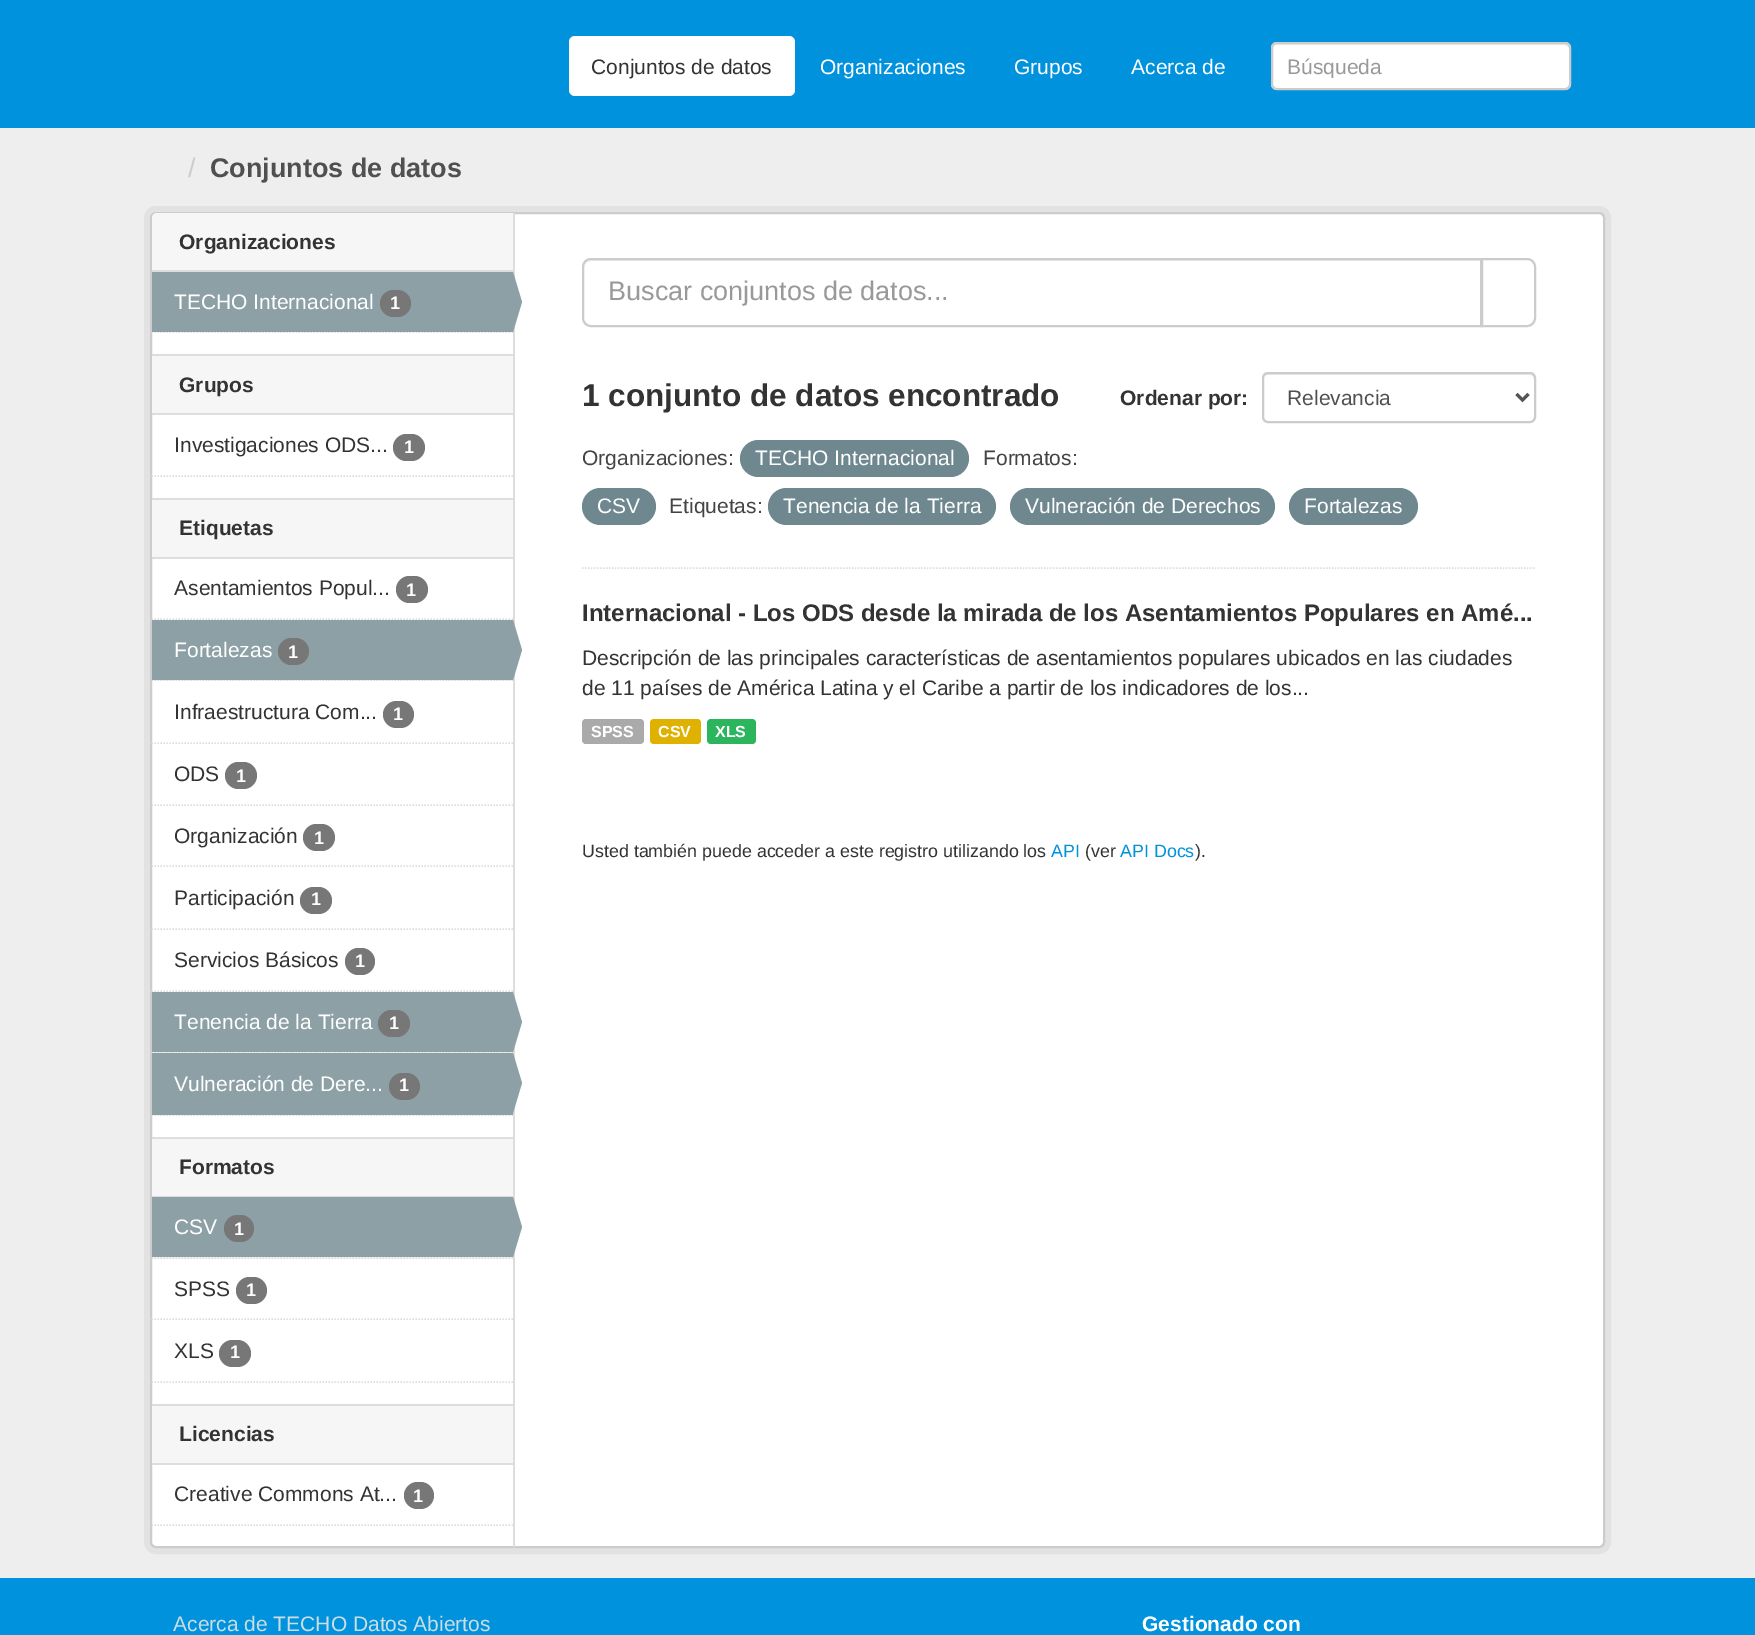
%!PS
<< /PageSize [1755 1635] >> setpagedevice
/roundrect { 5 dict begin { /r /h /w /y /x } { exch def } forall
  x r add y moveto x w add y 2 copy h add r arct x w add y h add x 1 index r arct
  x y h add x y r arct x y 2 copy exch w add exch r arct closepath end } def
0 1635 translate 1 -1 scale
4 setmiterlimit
0 0.573 0.867 setrgbcolor
0 0 1755 1635 rectfill
1 setgray
569 36 226 60 6 roundrect fill
/LiberationSans-Regular [21 0 0 -21 0 0] selectfont
0.2 setgray
591 74 moveto (Conjuntos de datos) show
1 setgray
820 74 moveto (Organizaciones) show
1014 74 moveto (Grupos) show
1131 74 moveto (Acerca de) show
1271 42 300 48 6 roundrect fill
0.925 setgray
newpath 1276 45 moveto 1564 45 lineto 1567 45 1569 47 1569 50 curveto 1569 49 lineto 1569 46 1567 44 1564 44 curveto 1277 44 lineto 1274 44 1272 46 1272 49 curveto 1272 50 lineto 1272 47 1274 45 1276 45 curveto closepath fill
0.8 setgray
2 setlinewidth
1272 43 298 46 5 roundrect stroke
gsave
1287 54 267 24 rectclip
0.6 setgray
1287 74 moveto (Búsqueda) show
grestore
0.933 setgray
0 128 1755 1450 rectfill
/LiberationSans-Regular [27 0 0 -27 0 0] selectfont
0.8 setgray
188 177 moveto (/) show
/LiberationSans-Bold [27 0 0 -27 0 0] selectfont
0.314 setgray
210 177 moveto (Conjuntos de datos) show
0.886 setgray
6 setlinewidth
147 209 1461 1342 9 roundrect stroke
1 setgray
151 213 1453 1334 5 roundrect gsave fill grestore
0.8 setgray
2 setlinewidth
stroke
0.965 setgray
newpath 157 213 moveto 513 213 lineto 513 272 lineto 152 272 lineto 152 218 lineto 152 215 154 213 157 213 curveto closepath fill
0.867 setgray
152 270 361 2 rectfill
/LiberationSans-Bold [21 0 0 -21 0 0] selectfont
0.2 setgray
179 249 moveto (Organizaciones) show
0.867 setgray
1.5 setlinewidth
[1.5 1.5] 0 setdash
newpath 151.5 332 moveto 513 332 lineto stroke
0.549 0.627 0.651 setrgbcolor
152 272 361 60 rectfill
/LiberationSans-Regular [21 0 0 -21 0 0] selectfont
1 setgray
174 309 moveto (TECHO Internacional) show
0.467 setgray
380 290 31 27 13.5 roundrect fill
/LiberationSans-Bold [18 0 0 -18 0 0] selectfont
1 setgray
390 309 moveto (1) show
0.867 setgray
513 213 2 1334 rectfill
0.549 0.627 0.651 setrgbcolor
newpath 513 332 moveto 513 272 lineto 522 302 lineto closepath fill
0.965 setgray
152 356 361 57 rectfill
0.867 setgray
152 354 361 2 rectfill
152 413 361 2 rectfill
/LiberationSans-Bold [21 0 0 -21 0 0] selectfont
0.2 setgray
179 392 moveto (Grupos) show
/LiberationSans-Regular [21 0 0 -21 0 0] selectfont
174 452 moveto (Investigaciones ODS...) show
0.467 setgray
393 434 32 27 13.5 roundrect fill
/LiberationSans-Bold [18 0 0 -18 0 0] selectfont
1 setgray
404 453 moveto (1) show
0.867 setgray
newpath 151.5 476 moveto 513 476 lineto stroke
0.965 setgray
152 500 361 57 rectfill
0.867 setgray
152 498 361 2 rectfill
152 557 361 2 rectfill
/LiberationSans-Bold [21 0 0 -21 0 0] selectfont
0.2 setgray
179 535 moveto (Etiquetas) show
0.867 setgray
newpath 151.5 619 moveto 513 619 lineto stroke
/LiberationSans-Regular [21 0 0 -21 0 0] selectfont
0.2 setgray
174 595 moveto (Asentamientos Popul...) show
0.467 setgray
396 576 32 27 13.5 roundrect fill
/LiberationSans-Bold [18 0 0 -18 0 0] selectfont
1 setgray
406 596 moveto (1) show
0.965 setgray
152 680 361 1 rectfill
0.867 setgray
newpath 151.5 680 moveto 513 680 lineto stroke
0.549 0.627 0.651 setrgbcolor
152 620 361 60 rectfill
/LiberationSans-Regular [21 0 0 -21 0 0] selectfont
1 setgray
174 657 moveto (Fortalezas) show
0.467 setgray
278 638 31 27 13.5 roundrect fill
/LiberationSans-Bold [18 0 0 -18 0 0] selectfont
1 setgray
288 658 moveto (1) show
0.549 0.627 0.651 setrgbcolor
newpath 513 680 moveto 513 620 lineto 522 650 lineto closepath fill
0.867 setgray
newpath 151.5 743 moveto 513 743 lineto stroke
/LiberationSans-Regular [21 0 0 -21 0 0] selectfont
0.2 setgray
174 719 moveto (Infraestructura Com...) show
0.467 setgray
383 701 31 27 13.5 roundrect fill
/LiberationSans-Bold [18 0 0 -18 0 0] selectfont
1 setgray
393 720 moveto (1) show
0.867 setgray
newpath 151.5 805 moveto 513 805 lineto stroke
/LiberationSans-Regular [21 0 0 -21 0 0] selectfont
0.2 setgray
174 781 moveto (ODS) show
0.467 setgray
225 762 32 27 13.5 roundrect fill
/LiberationSans-Bold [18 0 0 -18 0 0] selectfont
1 setgray
236 782 moveto (1) show
0.867 setgray
newpath 151.5 866 moveto 513 866 lineto stroke
/LiberationSans-Regular [21 0 0 -21 0 0] selectfont
0.2 setgray
174 843 moveto (Organización) show
0.467 setgray
303 824 32 27 13.5 roundrect fill
/LiberationSans-Bold [18 0 0 -18 0 0] selectfont
1 setgray
314 844 moveto (1) show
0.867 setgray
newpath 151.5 929 moveto 513 929 lineto stroke
/LiberationSans-Regular [21 0 0 -21 0 0] selectfont
0.2 setgray
174 905 moveto (Participación) show
0.467 setgray
300 887 32 27 13.5 roundrect fill
/LiberationSans-Bold [18 0 0 -18 0 0] selectfont
1 setgray
311 905 moveto (1) show
0.867 setgray
newpath 151.5 991 moveto 513 991 lineto stroke
/LiberationSans-Regular [21 0 0 -21 0 0] selectfont
0.2 setgray
174 967 moveto (Servicios Básicos) show
0.467 setgray
345 948 30 27 13.5 roundrect fill
/LiberationSans-Bold [18 0 0 -18 0 0] selectfont
1 setgray
355 967 moveto (1) show
0.965 setgray
152 1052 361 1 rectfill
0.867 setgray
newpath 151.5 1052 moveto 513 1052 lineto stroke
0.549 0.627 0.651 setrgbcolor
152 992 361 60 rectfill
/LiberationSans-Regular [21 0 0 -21 0 0] selectfont
1 setgray
174 1029 moveto (Tenencia de la Tierra) show
0.467 setgray
378 1010 32 27 13.5 roundrect fill
/LiberationSans-Bold [18 0 0 -18 0 0] selectfont
1 setgray
389 1029 moveto (1) show
0.549 0.627 0.651 setrgbcolor
newpath 513 1052 moveto 513 992 lineto 522 1022 lineto closepath fill
0.867 setgray
newpath 151.5 1115 moveto 513 1115 lineto stroke
0.549 0.627 0.651 setrgbcolor
152 1053 361 62 rectfill
/LiberationSans-Regular [21 0 0 -21 0 0] selectfont
1 setgray
174 1091 moveto (Vulneración de Dere...) show
0.467 setgray
389 1073 31 27 13.5 roundrect fill
/LiberationSans-Bold [18 0 0 -18 0 0] selectfont
1 setgray
399 1091 moveto (1) show
0.549 0.627 0.651 setrgbcolor
newpath 513 1113 moveto 513 1053 lineto 522 1083 lineto closepath fill
0.965 setgray
152 1139 361 57 rectfill
0.867 setgray
152 1137 361 2 rectfill
152 1196 361 1 rectfill
/LiberationSans-Bold [21 0 0 -21 0 0] selectfont
0.2 setgray
179 1174 moveto (Formatos) show
0.965 setgray
152 1257 361 2 rectfill
0.867 setgray
newpath 151.5 1258 moveto 513 1258 lineto stroke
0.549 0.627 0.651 setrgbcolor
152 1197 361 60 rectfill
/LiberationSans-Regular [21 0 0 -21 0 0] selectfont
1 setgray
174 1234 moveto (CSV) show
0.467 setgray
224 1215 30 27 13.5 roundrect fill
/LiberationSans-Bold [18 0 0 -18 0 0] selectfont
1 setgray
234 1235 moveto (1) show
0.549 0.627 0.651 setrgbcolor
newpath 513 1257 moveto 513 1197 lineto 522 1227 lineto closepath fill
0.867 setgray
newpath 151.5 1319 moveto 513 1319 lineto stroke
/LiberationSans-Regular [21 0 0 -21 0 0] selectfont
0.2 setgray
174 1296 moveto (SPSS) show
0.467 setgray
236 1277 31 27 13.5 roundrect fill
/LiberationSans-Bold [18 0 0 -18 0 0] selectfont
1 setgray
246 1296 moveto (1) show
/LiberationSans-Regular [21 0 0 -21 0 0] selectfont
0.2 setgray
174 1358 moveto (XLS) show
0.467 setgray
219 1340 32 27 13.5 roundrect fill
/LiberationSans-Bold [18 0 0 -18 0 0] selectfont
1 setgray
230 1358 moveto (1) show
0.867 setgray
newpath 151.5 1382 moveto 513 1382 lineto stroke
0.965 setgray
152 1406 361 57 rectfill
0.867 setgray
152 1404 361 2 rectfill
152 1463 361 2 rectfill
/LiberationSans-Bold [21 0 0 -21 0 0] selectfont
0.2 setgray
179 1441 moveto (Licencias) show
/LiberationSans-Regular [21 0 0 -21 0 0] selectfont
174 1501 moveto (Creative Commons At...) show
0.467 setgray
404 1482 30 27 13.5 roundrect fill
/LiberationSans-Bold [18 0 0 -18 0 0] selectfont
1 setgray
413 1502 moveto (1) show
0.867 setgray
newpath 151.5 1525 moveto 513 1525 lineto stroke
newpath 582 568 moveto 1536 568 lineto stroke
0.925 setgray
newpath 591 261 moveto 1480 261 lineto 1480 326 lineto 1481 326 lineto 1481 260 lineto 592 260 lineto 588 260 584 264 584 268 curveto 584 264 587 261 591 261 curveto closepath fill
0.8 setgray
2 setlinewidth
[] 0 setdash
newpath 591 259 moveto 1481 259 lineto 1481 326 lineto 591 326 lineto 586.5 326 583 322.5 583 318 curveto 583 267 lineto 583 262.5 586.5 259 591 259 curveto closepath stroke
/LiberationSans-Regular [27 0 0 -27 0 0] selectfont
0.6 setgray
608 300 moveto (Buscar conjuntos de datos...) show
1 setgray
newpath 1482 259 moveto 1527 259 lineto 1531.5 259 1535 262.5 1535 267 curveto 1535 318 lineto 1535 322.5 1531.5 326 1527 326 curveto 1482 326 lineto closepath gsave fill grestore
0.8 setgray
stroke
/LiberationSans-Bold [31.5 0 0 -31.5 0 0] selectfont
0.2 setgray
582 406 moveto (1 conjunto de datos encontrado) show
/LiberationSans-Bold [21 0 0 -21 0 0] selectfont
1120 405 moveto (Ordenar por:) show
0.925 setgray
newpath 1268 375 moveto 1530 375 lineto 1532 375 1534 377 1534 380 curveto 1534 418 lineto 1533 421 lineto 1534 420 1535 418 1535 417 curveto 1535 379 lineto 1535 376 1533 374 1530 374 curveto 1268 374 lineto 1265 374 1263 376 1263 379 curveto 1263 380 lineto 1263 377 1265 375 1268 375 curveto closepath fill
0.8 setgray
1263 373 272 49 5 roundrect stroke
0.333 setgray
3 setlinewidth
newpath 1516.5 394 moveto 1522.5 400 lineto 1528.5 394 lineto stroke
/LiberationSans-Regular [21 0 0 -21 0 0] selectfont
0.314 setgray
1287 405 moveto (Relevancia) show
0.267 setgray
582 465 moveto (Organizaciones:) show
0.435 0.533 0.565 setrgbcolor
740 440 229 37 18.5 roundrect fill
1 setgray
755 465 moveto (TECHO Internacional) show
0.267 setgray
983 465 moveto (Formatos:) show
0.435 0.533 0.565 setrgbcolor
582 488 74 37 18.5 roundrect fill
1 setgray
597 513 moveto (CSV) show
0.267 setgray
669 513 moveto (Etiquetas:) show
0.435 0.533 0.565 setrgbcolor
768 488 228 37 18.5 roundrect fill
1 setgray
783 513 moveto (Tenencia de la Tierra) show
0.435 0.533 0.565 setrgbcolor
1010 488 265 37 18.5 roundrect fill
1 setgray
1025 513 moveto (Vulneración de Derechos) show
0.435 0.533 0.565 setrgbcolor
1289 488 129 37 18.5 roundrect fill
1 setgray
1304 513 moveto (Fortalezas) show
/LiberationSans-Bold [24 0 0 -24 0 0] selectfont
0.2 setgray
582 621 moveto (Internacional - Los ODS desde la mirada de los Asentamientos Populares en Amé...) show
/LiberationSans-Regular [21 0 0 -21 0 0] selectfont
582 665 moveto (Descripción de las principales características de asentamientos populares ubicados en las ciudades) show
582 695 moveto (de 11 países de América Latina y el Caribe a partir de los indicadores de los...) show
0.667 setgray
582 719 62 25 4 roundrect fill
/LiberationSans-Bold [16 0 0 -16 0 0] selectfont
1 setgray
591 737 moveto (SPSS) show
0.875 0.694 0 setrgbcolor
650 719 51 25 4 roundrect fill
1 setgray
658 737 moveto (CSV) show
0.176 0.71 0.365 setrgbcolor
707 719 49 25 4 roundrect fill
1 setgray
715 737 moveto (XLS) show
/LiberationSans-Regular [17.85 0 0 -17.85 0 0] selectfont
0.2 setgray
582 857 moveto (Usted también puede acceder a este registro utilizando los) show
0 0.573 0.867 setrgbcolor
1051 857 moveto (API) show
0.2 setgray
1085 857 moveto (\(ver) show
0 0.573 0.867 setrgbcolor
1120 857 moveto (API Docs) show
0.2 setgray
1195 857 moveto (\).) show
/LiberationSans-Regular [21 0 0 -21 0 0] selectfont
0.8 0.871 0.89 setrgbcolor
173 1631 moveto (Acerca de TECHO Datos Abiertos) show
/LiberationSans-Bold [21 0 0 -21 0 0] selectfont
1 setgray
1142 1631 moveto (Gestionado con) show
showpage
